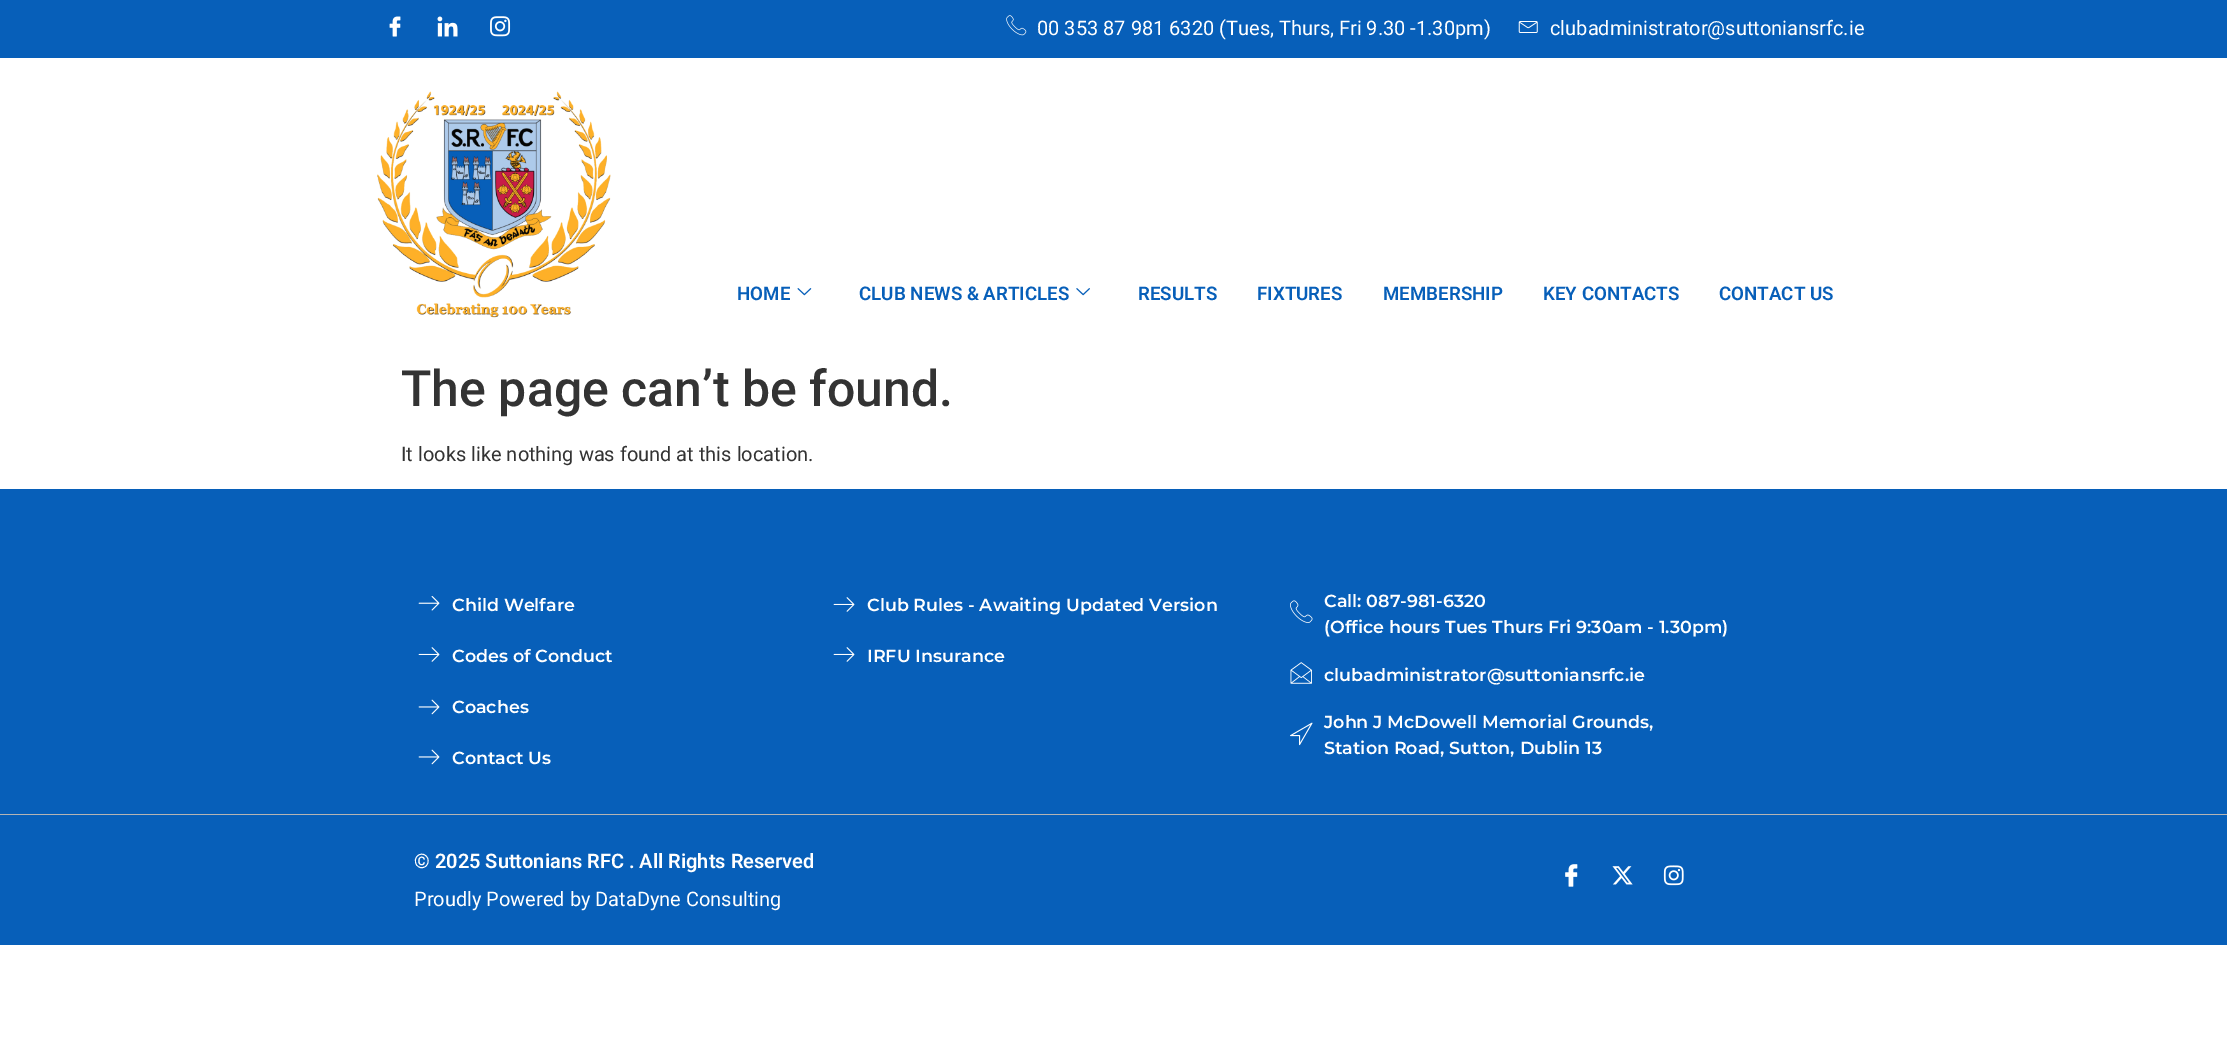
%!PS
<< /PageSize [2227 1053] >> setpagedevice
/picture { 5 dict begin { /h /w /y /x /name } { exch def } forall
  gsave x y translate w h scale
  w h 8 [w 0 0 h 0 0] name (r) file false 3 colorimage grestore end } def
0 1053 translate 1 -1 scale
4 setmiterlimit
1 setgray
0 0 2227 1053 rectfill
0.027 0.373 0.725 setrgbcolor
0 0 2227 58 rectfill
(img1.rgb) 389 16 12 21 picture
(img2.rgb) 437 16 21 21 picture
(img3.rgb) 490 16 21 21 picture
(img4.rgb) 1006 15 21 21 picture
/Roboto-Regular [20 0 0 -20 0 0] selectfont
1 setgray
1037 35 moveto (00 353 87 981 6320 \(Tues, Thurs, Fri 9.30 -1.30pm\)) show
(img5.rgb) 1518 21 20 12 picture
1550 35 moveto (clubadministrator@suttoniansrfc.ie) show
(img6.rgb) 377 91 234 227 picture
/Roboto-SemiBold [18.75 0 0 -18.75 0 0] selectfont
0.027 0.373 0.725 setrgbcolor
737 300 moveto (HOME) show
(img7.rgb) 797 288 15 8 picture
859 300 moveto (CLUB NEWS & ARTICLES) show
(img8.rgb) 1076 288 14 8 picture
1138 300 moveto (RESULTS) show
1257 300 moveto (FIXTURES) show
1383 300 moveto (MEMBERSHIP) show
1543 300 moveto (KEY CONTACTS) show
1719 300 moveto (CONTACT US) show
/Roboto-Medium [50 0 0 -50 0 0] selectfont
0.2 setgray
401 406 moveto (The page can’t be found.) show
/Roboto-Regular [20 0 0 -20 0 0] selectfont
401 461 moveto (It looks like nothing was found at this location.) show
0.027 0.373 0.725 setrgbcolor
0 489 2227 325 rectfill
(img9.rgb) 418 596 22 15 picture
/Montserrat-SemiBold [17.5 0 0 -17.5 0 0] selectfont
1 setgray
452 611 moveto (Child Welfare) show
(img10.rgb) 418 647 22 15 picture
452 662 moveto (Codes of Conduct) show
(img11.rgb) 418 699 22 16 picture
452 713 moveto (Coaches) show
(img11.rgb) 418 749 22 16 picture
452 764 moveto (Contact Us) show
(img10.rgb) 833 597 22 15 picture
867 611 moveto (Club Rules - Awaiting Updated Version) show
(img10.rgb) 833 647 22 15 picture
867 662 moveto (IRFU Insurance) show
(img12.rgb) 1290 600 23 23 picture
1324 607 moveto (Call: 087-981-6320) show
1324 633 moveto (\(Office hours Tues Thurs Fri 9:30am - 1.30pm\)) show
(img13.rgb) 1290 662 22 22 picture
1324 681 moveto (clubadministrator@suttoniansrfc.ie) show
(img14.rgb) 1290 722 23 24 picture
1324 728 moveto (John J McDowell Memorial Grounds,) show
1324 754 moveto (Station Road, Sutton, Dublin 13) show
0.027 0.373 0.725 setrgbcolor
0 815 2227 130 rectfill
0.706 setgray
0 814 2227 1 rectfill
/Roboto-SemiBold [20 0 0 -20 0 0] selectfont
1 setgray
414 868 moveto (© 2025 Suttonians RFC . All Rights Reserved) show
/Roboto-Regular [20 0 0 -20 0 0] selectfont
414 906 moveto (Proudly Powered by DataDyne Consulting) show
(img15.rgb) 1565 864 13 23 picture
(img16.rgb) 1612 866 21 19 picture
(img17.rgb) 1663 865 21 21 picture
showpage
